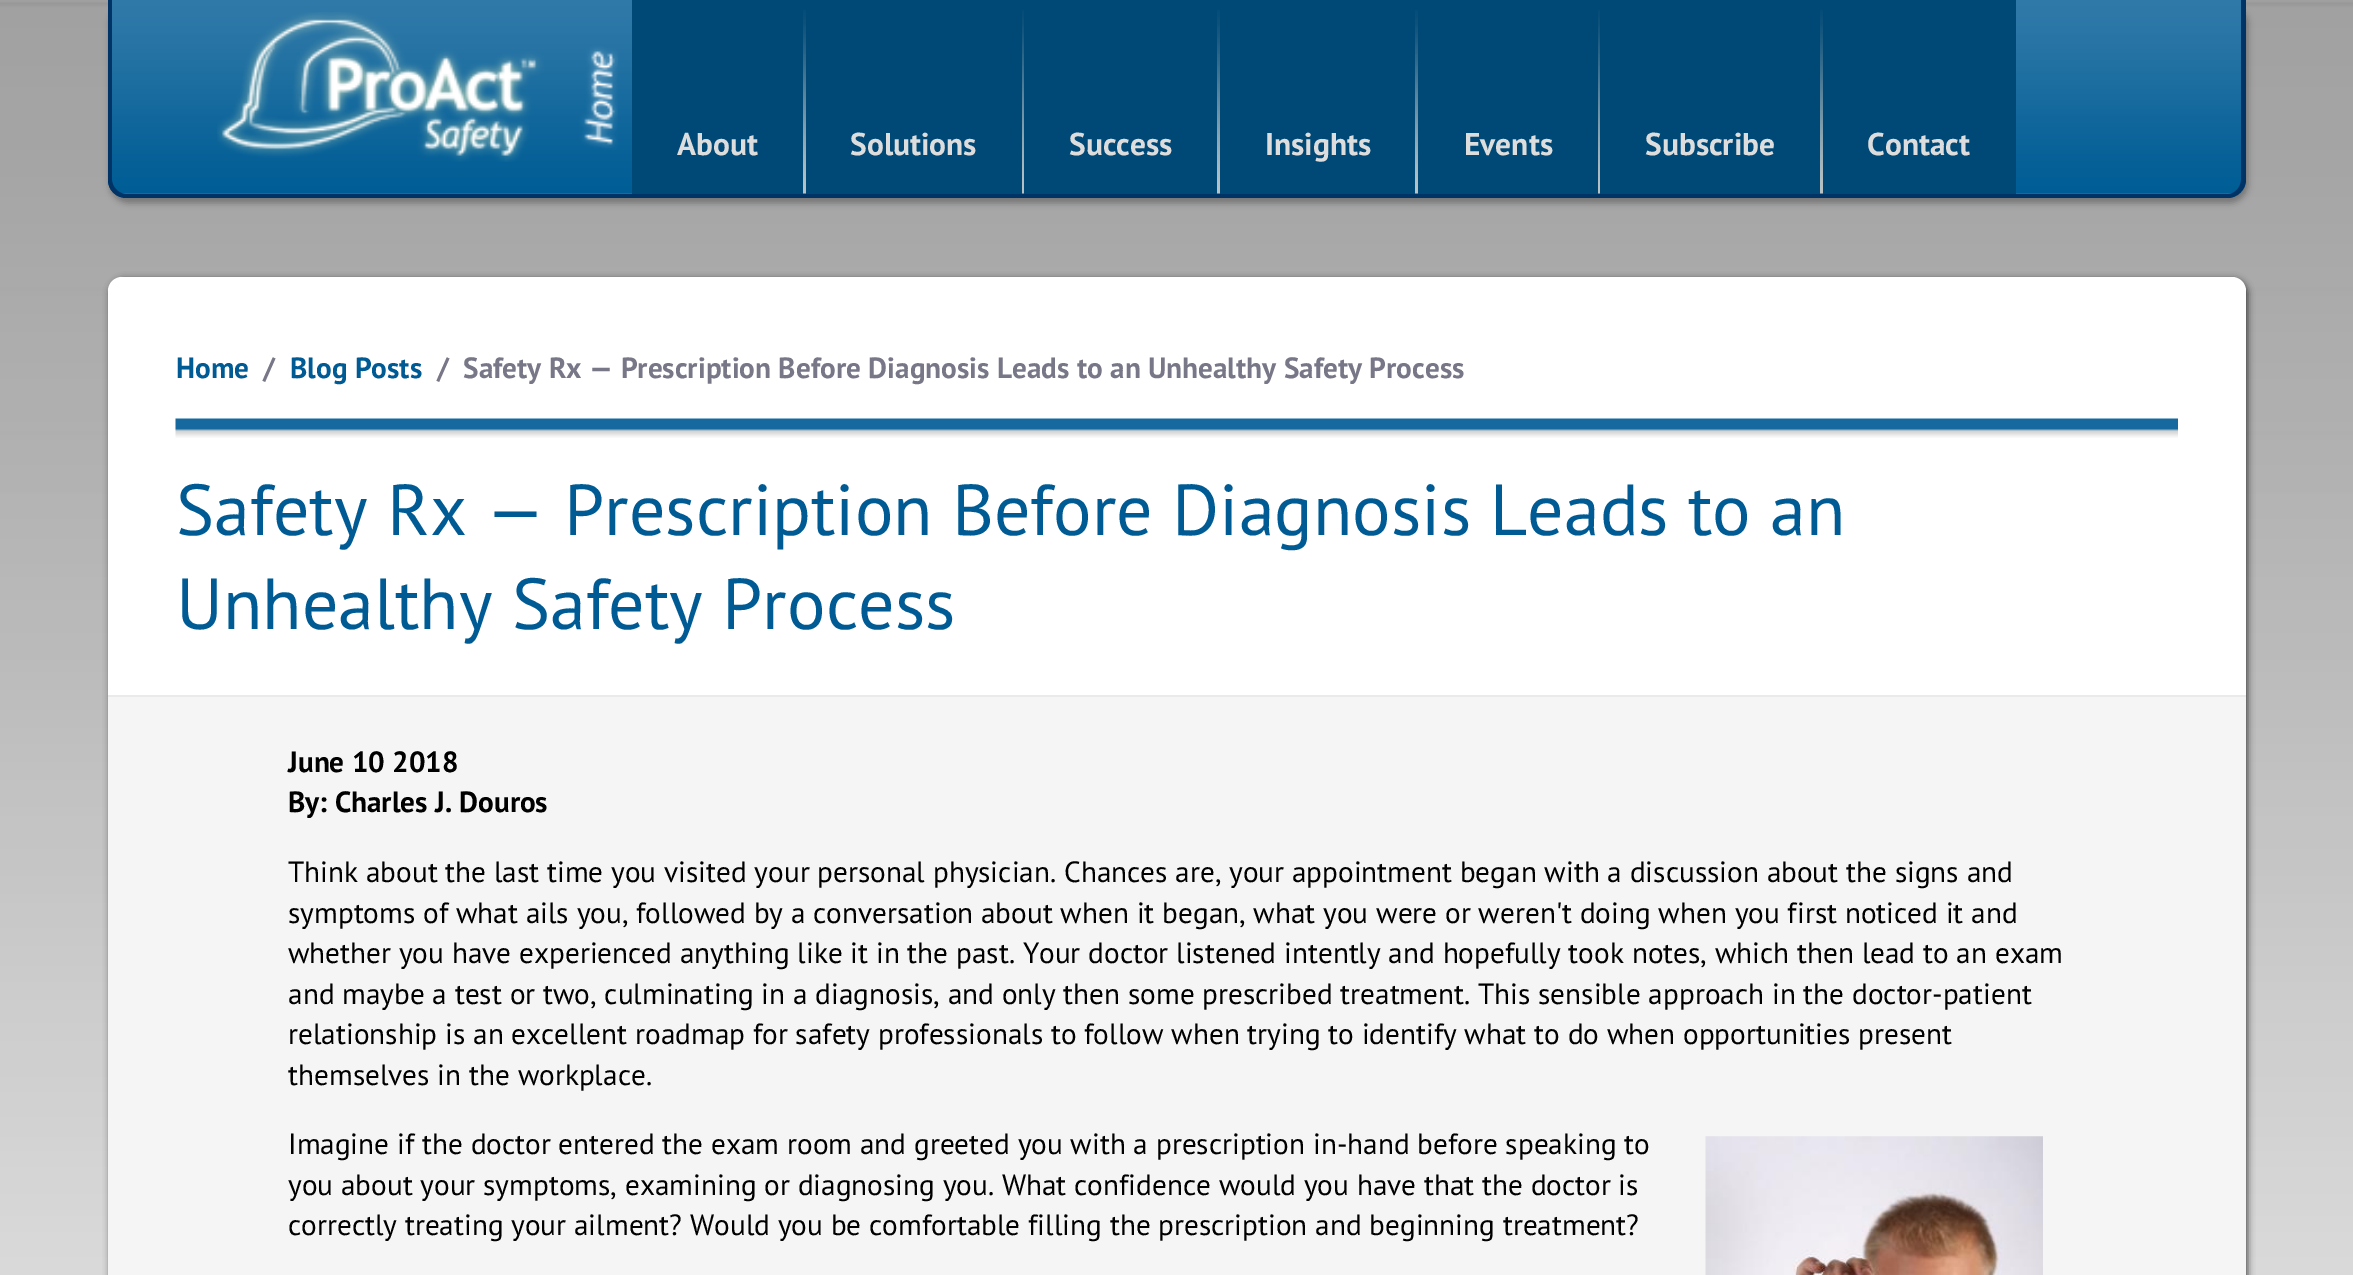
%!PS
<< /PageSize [2353 1275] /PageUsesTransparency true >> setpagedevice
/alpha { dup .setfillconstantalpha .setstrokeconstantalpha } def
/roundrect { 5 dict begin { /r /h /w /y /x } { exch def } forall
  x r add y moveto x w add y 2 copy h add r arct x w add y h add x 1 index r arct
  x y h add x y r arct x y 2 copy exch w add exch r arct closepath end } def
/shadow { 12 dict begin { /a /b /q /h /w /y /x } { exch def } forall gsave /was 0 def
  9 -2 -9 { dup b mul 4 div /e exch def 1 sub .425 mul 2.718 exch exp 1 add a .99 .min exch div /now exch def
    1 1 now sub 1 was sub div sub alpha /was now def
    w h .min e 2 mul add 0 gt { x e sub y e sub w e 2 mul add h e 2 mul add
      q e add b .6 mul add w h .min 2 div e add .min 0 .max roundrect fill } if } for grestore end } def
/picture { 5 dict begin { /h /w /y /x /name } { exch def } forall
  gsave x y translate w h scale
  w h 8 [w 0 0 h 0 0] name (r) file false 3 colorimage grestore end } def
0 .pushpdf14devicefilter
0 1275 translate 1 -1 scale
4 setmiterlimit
1 setgray
0 0 2353 1275 rectfill
(img1.rgb) 0 0 2353 1275 picture
0 setgray
110 5 2138 198 18 3.5 0.3 shadow
0.184 0.475 0.659 setrgbcolor
newpath 113 0 moveto 2241 0 lineto 2241 180 lineto 2241 187.5 2234.5 194 2227 194 curveto 127 194 lineto 119.5 194 113 187.5 113 180 curveto closepath fill
(img2.rgb) 108 0 2138 194 picture
0 0.2 0.4 setrgbcolor
newpath 108 0 moveto 2246 0 lineto 2246 180 lineto 2246 190 2237 198 2228 198 curveto 126 198 lineto 116 198 108 190 108 180 curveto closepath 112 0 moveto 2241 0 lineto 2241 180 lineto 2241 187 2235 194 2228 194 curveto 126 194 lineto 119 194 112 187 112 180 curveto closepath eofill
(img3.rgb) 217 12 401 150 picture
0 0.286 0.463 setrgbcolor
632 0 1384 194 rectfill
(img4.rgb) 803 10 1020 184 picture
/PTSans-Bold [31.5 0 0 -31.5 0 0] selectfont
0.867 setgray
677 155 moveto (About) show
0 0.286 0.463 setrgbcolor
806 10 216 184 rectfill
0.867 setgray
850 155 moveto (Solutions) show
0 0.286 0.463 setrgbcolor
1024 10 193 184 rectfill
0.867 setgray
1069 155 moveto (Success) show
0 0.286 0.463 setrgbcolor
1220 10 195 184 rectfill
0.867 setgray
1265 155 moveto (Insights) show
0 0.286 0.463 setrgbcolor
1418 10 180 184 rectfill
0.867 setgray
1464 155 moveto (Events) show
0 0.286 0.463 setrgbcolor
1600 10 220 184 rectfill
0.867 setgray
1645 155 moveto (Subscribe) show
1867 155 moveto (Contact) show
0 setgray
110 279 2138 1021 14 3.5 0.6 shadow
1 setgray
108 277 2138 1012 14 roundrect fill
/PTSans-Bold [29.25 0 0 -29.25 0 0] selectfont
0 0.357 0.584 setrgbcolor
176 378 moveto (Home) show
0.467 0.467 0.533 setrgbcolor
263 378 moveto (/) show
0 0.357 0.584 setrgbcolor
290 378 moveto (Blog Posts) show
0.467 0.467 0.533 setrgbcolor
437 378 moveto (/) show
463 378 moveto (Safety Rx — Prescription Before Diagnosis Leads to an Unhealthy Safety Process) show
(img5.rgb) 175 418 2003 20 picture
/PTSans-Regular [72 0 0 -72 0 0] selectfont
0 0.357 0.584 setrgbcolor
176 535 moveto (Safety Rx — Prescription Before Diagnosis Leads to an) show
176 629 moveto (Unhealthy Safety Process) show
0.961 setgray
108 697 2138 578 rectfill
0.918 setgray
108 695 2138 2 rectfill
/PTSans-Bold [29.25 0 0 -29.25 0 0] selectfont
0 setgray
288 772 moveto (June 10 2018) show
288 812 moveto (By: Charles J. Douros) show
/PTSans-Regular [29.25 0 0 -29.25 0 0] selectfont
288 882 moveto (Think about the last time you visited your personal physician. Chances are, your appointment began with a discussion about the signs and) show
288 923 moveto (symptoms of what ails you, followed by a conversation about when it began, what you were or weren't doing when you first noticed it and) show
288 963 moveto (whether you have experienced anything like it in the past. Your doctor listened intently and hopefully took notes, which then lead to an exam) show
288 1004 moveto (and maybe a test or two, culminating in a diagnosis, and only then some prescribed treatment. This sensible approach in the doctor-patient) show
288 1044 moveto (relationship is an excellent roadmap for safety professionals to follow when trying to identify what to do when opportunities present) show
288 1085 moveto (themselves in the workplace.) show
288 1154 moveto (Imagine if the doctor entered the exam room and greeted you with a prescription in-hand before speaking to) show
288 1195 moveto (you about your symptoms, examining or diagnosing you. What confidence would you have that the doctor is) show
288 1235 moveto (correctly treating your ailment? Would you be comfortable filling the prescription and beginning treatment?) show
(img6.rgb) 1705 1136 338 139 picture
.poppdf14devicefilter showpage
